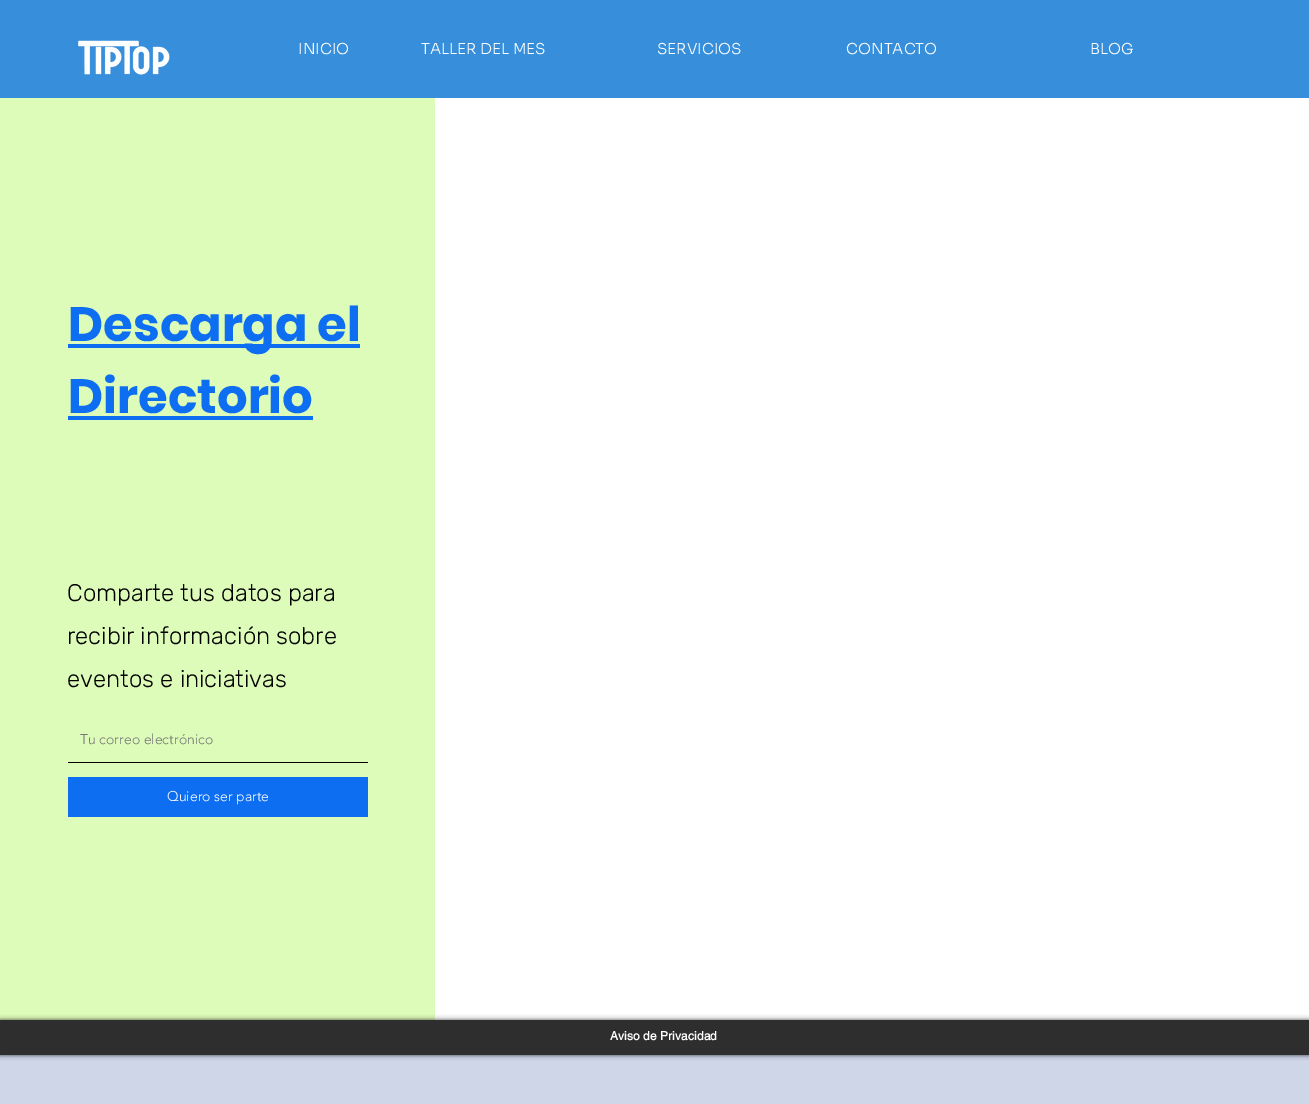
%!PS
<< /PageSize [1309 1104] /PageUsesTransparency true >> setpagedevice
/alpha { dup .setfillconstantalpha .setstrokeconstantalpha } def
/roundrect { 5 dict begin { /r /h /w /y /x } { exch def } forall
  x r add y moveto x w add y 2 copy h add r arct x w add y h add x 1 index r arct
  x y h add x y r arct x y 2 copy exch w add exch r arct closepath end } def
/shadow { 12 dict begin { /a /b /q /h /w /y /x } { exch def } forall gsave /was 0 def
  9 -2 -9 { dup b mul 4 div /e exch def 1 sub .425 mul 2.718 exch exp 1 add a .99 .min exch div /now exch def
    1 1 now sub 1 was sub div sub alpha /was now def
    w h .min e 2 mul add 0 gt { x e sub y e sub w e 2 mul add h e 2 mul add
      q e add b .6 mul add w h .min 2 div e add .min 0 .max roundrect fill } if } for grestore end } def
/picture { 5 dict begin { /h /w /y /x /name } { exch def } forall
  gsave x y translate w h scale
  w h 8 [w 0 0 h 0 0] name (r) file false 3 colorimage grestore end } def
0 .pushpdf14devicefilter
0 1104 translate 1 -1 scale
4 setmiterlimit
0.812 0.839 0.91 setrgbcolor
0 0 1309 1104 rectfill
0.216 0.557 0.859 setrgbcolor
0 0 1309 98 rectfill
(img1.rgb) 78 40 92 35 picture
/Sora-Light [15 0 0 -15 0 0] selectfont
1 setgray
298 54 moveto (INICIO) show
421 54 moveto (TALLER DEL MES) show
657 54 moveto (SERVICIOS) show
846 54 moveto (CONTACTO) show
1090 54 moveto (BLOG) show
0.871 0.988 0.725 setrgbcolor
0 98 435 922 rectfill
0.051 0.431 0.949 setrgbcolor
68 344 292 4 rectfill
/Poppins-Bold [48 0 0 -48 0 0] selectfont
68 341 moveto (Descarga el) show
68 413 moveto (Directorio) show
68 416 245 4 rectfill
/Rubik-Light [24 0 0 -24 0 0] selectfont
0 setgray
67 601 moveto (Comparte tus datos para) show
67 644 moveto (recibir información sobre) show
67 687 moveto (eventos e iniciativas) show
68 762 300 1 rectfill
/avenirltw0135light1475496-Light [14 0 0 -14 0 0] selectfont
0.459 setgray
80 744 moveto (Tu correo electrónico) show
0.051 0.431 0.949 setrgbcolor
68 777 300 40 rectfill
1 setgray
167 801 moveto (Quiero ser parte) show
435 98 874 922 rectfill
0 setgray
0 1020 1309 35 0 2.5 0.7 shadow
0.184 0.18 0.18 setrgbcolor
0 1020 1309 35 rectfill
/helvetica-Bold [12 0 0 -12 0 0] selectfont
1 setgray
610 1040 moveto 0.1 0 (Aviso de Privacidad) ashow
.poppdf14devicefilter showpage
